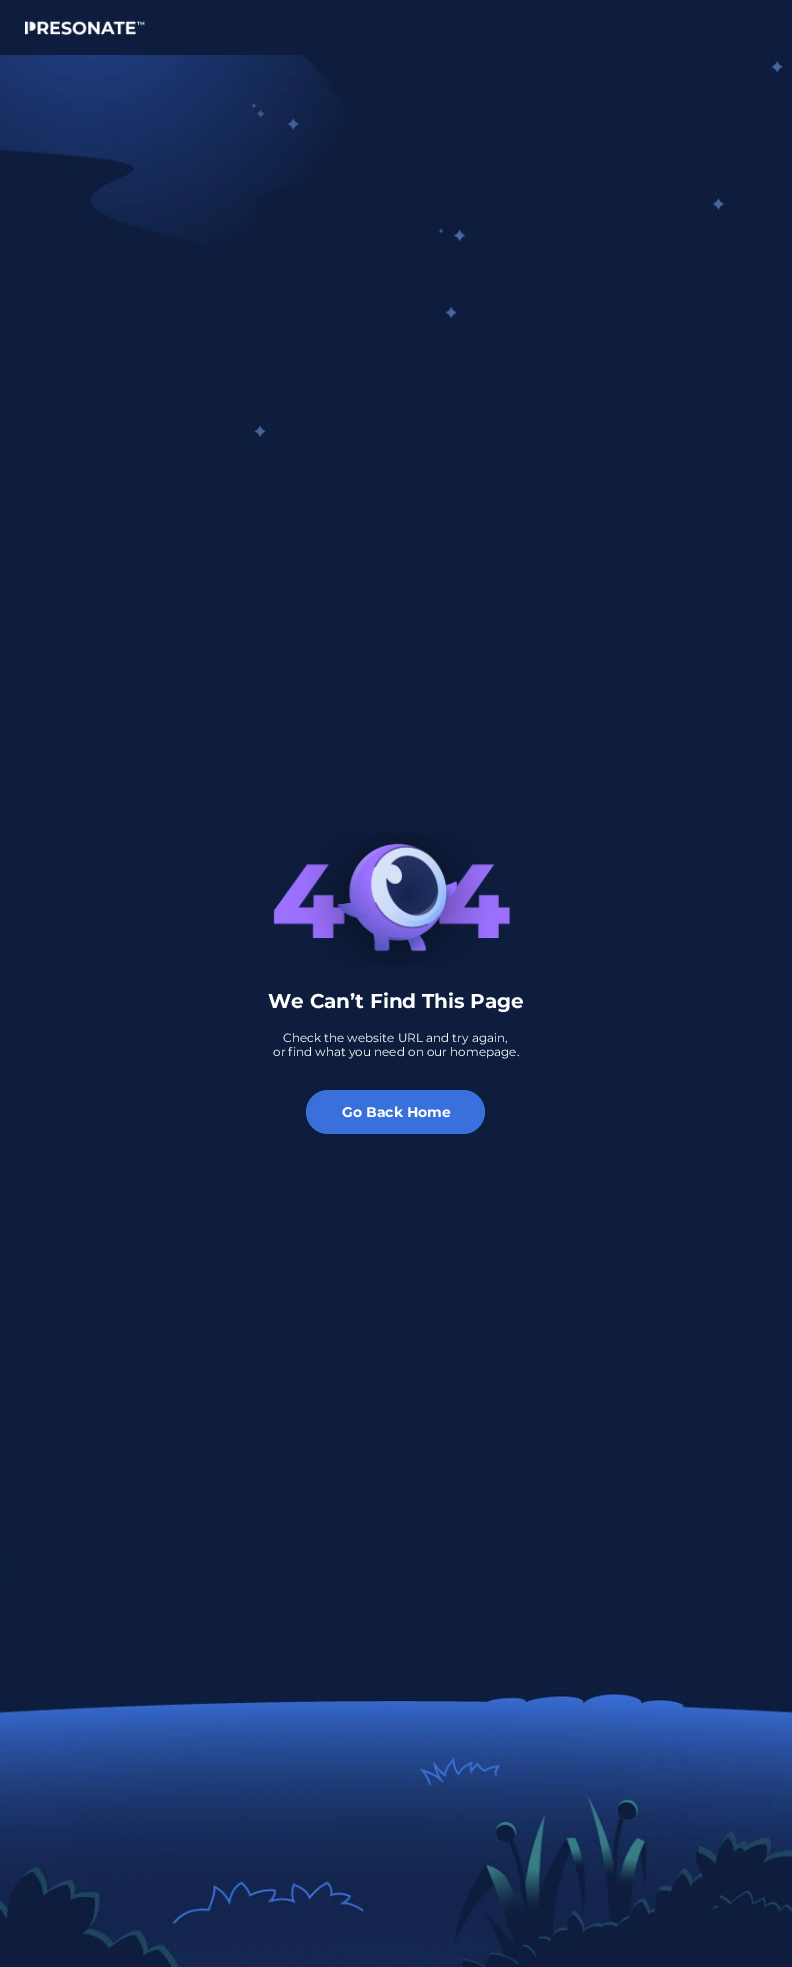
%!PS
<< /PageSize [792 1967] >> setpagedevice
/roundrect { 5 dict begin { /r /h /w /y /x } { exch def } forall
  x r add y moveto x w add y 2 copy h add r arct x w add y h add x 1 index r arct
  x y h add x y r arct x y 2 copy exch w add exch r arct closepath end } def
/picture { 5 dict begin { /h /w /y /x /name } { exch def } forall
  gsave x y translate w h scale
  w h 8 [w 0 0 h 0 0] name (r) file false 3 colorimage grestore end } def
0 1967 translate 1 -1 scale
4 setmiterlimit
1 setgray
0 0 792 1967 rectfill
0.055 0.114 0.239 setrgbcolor
0 0 792 55 rectfill
(img1.rgb) 25 21 120 15 picture
(img2.rgb) 0 55 792 1912 picture
(img3.rgb) 273 833 238 134 picture
/Montserrat-Bold [20 0 0 -20 0 0] selectfont
1 setgray
268 1008 moveto (We Can’t Find This Page) show
/Montserrat-Regular [12 0 0 -12 0 0] selectfont
283 1042 moveto (Check the website URL and try again,) show
273 1056 moveto (or find what you need on our homepage.) show
0.227 0.439 0.859 setrgbcolor
306 1090 179 44 22 roundrect fill
/Montserrat-Bold [14 0 0 -14 0 0] selectfont
1 setgray
342 1117 moveto (Go Back Home) show
showpage
